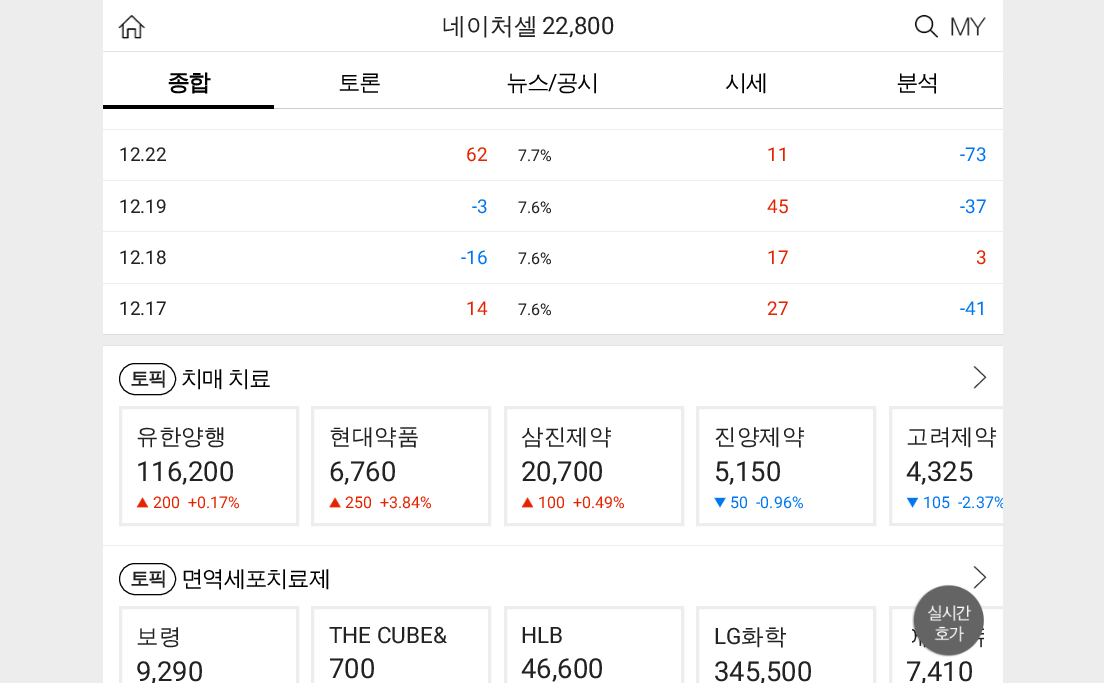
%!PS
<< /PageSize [1104 683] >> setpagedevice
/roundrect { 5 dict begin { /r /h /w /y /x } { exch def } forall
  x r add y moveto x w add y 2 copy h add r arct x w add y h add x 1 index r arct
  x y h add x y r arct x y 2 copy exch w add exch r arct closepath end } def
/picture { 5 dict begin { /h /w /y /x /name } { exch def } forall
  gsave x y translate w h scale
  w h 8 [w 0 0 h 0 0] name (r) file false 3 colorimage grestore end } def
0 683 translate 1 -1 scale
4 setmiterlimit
0.929 setgray
0 0 1104 683 rectfill
1 setgray
103 0 900 51 rectfill
(img1.rgb) 118 15 28 24 picture
(img2.rgb) 915 15 23 23 picture
(img3.rgb) 951 17 35 19 picture
/WenQuanYiZenHei-Medium [24 0 0 -24 0 0] selectfont
0.133 setgray
442 34 moveto (네이처셀) show
/Roboto-Regular [24 0 0 -24 0 0] selectfont
542 34 moveto (22,800) show
1 setgray
103 52 900 56 rectfill
0.89 setgray
103 51 900 1 rectfill
0 setgray
103 105 171 4 rectfill
/WenQuanYiZenHei-Bold [22.5 0 0 -22.5 0 0] selectfont
167 90 moveto -1.25 0 (종합) ashow
0.804 setgray
274 108 729 1 rectfill
/WenQuanYiZenHei-Medium [22.5 0 0 -22.5 0 0] selectfont
0 setgray
338 90 moveto -1.25 0 (토론) ashow
506 90 moveto -1.25 0 (뉴스) ashow
/Roboto-Regular [22.5 0 0 -22.5 0 0] selectfont
548 90 moveto -1.25 0 (/) ashow
/WenQuanYiZenHei-Medium [22.5 0 0 -22.5 0 0] selectfont
556 90 moveto -1.25 0 (공시) ashow
725 90 moveto -1.25 0 (시세) ashow
896 90 moveto -1.25 0 (분석) ashow
1 setgray
103 109 900 225 rectfill
0.89 setgray
1003 78 1 1 rectfill
0.933 setgray
103 129 901 1 rectfill
/Roboto-Regular [19 0 0 -19 0 0] selectfont
0.133 setgray
119 161 moveto (12.22) show
0.902 0.137 0 setrgbcolor
466 161 moveto (62) show
/Roboto-Regular [16 0 0 -16 0 0] selectfont
0.133 setgray
518 161 moveto (7.7%) show
/Roboto-Regular [19 0 0 -19 0 0] selectfont
0.902 0.137 0 setrgbcolor
767 161 moveto (11) show
0.933 setgray
103 180 901 1 rectfill
0 0.467 0.941 setrgbcolor
960 161 moveto (-73) show
0.133 setgray
119 213 moveto (12.19) show
0 0.467 0.941 setrgbcolor
472 213 moveto (-3) show
/Roboto-Regular [16 0 0 -16 0 0] selectfont
0.133 setgray
518 213 moveto (7.6%) show
/Roboto-Regular [19 0 0 -19 0 0] selectfont
0.902 0.137 0 setrgbcolor
767 213 moveto (45) show
0.933 setgray
103 231 901 1 rectfill
0 0.467 0.941 setrgbcolor
960 213 moveto (-37) show
0.133 setgray
119 264 moveto (12.18) show
0 0.467 0.941 setrgbcolor
461 264 moveto (-16) show
/Roboto-Regular [16 0 0 -16 0 0] selectfont
0.133 setgray
518 264 moveto (7.6%) show
/Roboto-Regular [19 0 0 -19 0 0] selectfont
0.902 0.137 0 setrgbcolor
767 264 moveto (17) show
0.933 setgray
103 283 901 1 rectfill
0.902 0.137 0 setrgbcolor
976 264 moveto (3) show
0.133 setgray
119 315 moveto (12.17) show
0.902 0.137 0 setrgbcolor
466 315 moveto (14) show
/Roboto-Regular [16 0 0 -16 0 0] selectfont
0.133 setgray
518 315 moveto (7.6%) show
/Roboto-Regular [19 0 0 -19 0 0] selectfont
0.902 0.137 0 setrgbcolor
767 315 moveto (27) show
0.867 setgray
103 334 901 1 rectfill
0 0.467 0.941 setrgbcolor
960 315 moveto (-41) show
1 setgray
103 346 900 337 rectfill
0.89 setgray
103 345 900 1 rectfill
0 setgray
119.5 363.5 56 31 15.5 roundrect stroke
/WenQuanYiZenHei-Bold [19 0 0 -19 0 0] selectfont
0.133 setgray
130 385 moveto -1.25 0 (토픽) ashow
/WenQuanYiZenHei-Medium [22.5 0 0 -22.5 0 0] selectfont
0 setgray
181 386 moveto -1 0 32 -1.25 0 (치매 치료) awidthshow
(img4.rgb) 973 366 14 23 picture
0.929 setgray
3 setlinewidth
120.5 407.5 177 117 rectstroke
0.133 setgray
136 444 moveto (유한양행) show
/Roboto-Regular [27.5 0 0 -27.5 0 0] selectfont
136 481 moveto (116,200) show
(img5.rgb) 136 497 13 11 picture
/Roboto-Regular [16 0 0 -16 0 0] selectfont
0.902 0.137 0 setrgbcolor
153 508 moveto (200) show
188 508 moveto (+0.17%) show
0.929 setgray
312.5 407.5 177 117 rectstroke
/WenQuanYiZenHei-Medium [22.5 0 0 -22.5 0 0] selectfont
0.133 setgray
329 444 moveto (현대약품) show
/Roboto-Regular [27.5 0 0 -27.5 0 0] selectfont
329 481 moveto (6,760) show
(img6.rgb) 328 497 14 11 picture
/Roboto-Regular [16 0 0 -16 0 0] selectfont
0.902 0.137 0 setrgbcolor
345 508 moveto (250) show
380 508 moveto (+3.84%) show
0.929 setgray
505.5 407.5 177 117 rectstroke
/WenQuanYiZenHei-Medium [22.5 0 0 -22.5 0 0] selectfont
0.133 setgray
521 444 moveto (삼진제약) show
/Roboto-Regular [27.5 0 0 -27.5 0 0] selectfont
521 481 moveto (20,700) show
(img5.rgb) 521 497 13 11 picture
/Roboto-Regular [16 0 0 -16 0 0] selectfont
0.902 0.137 0 setrgbcolor
538 508 moveto (100) show
573 508 moveto (+0.49%) show
0.929 setgray
697.5 407.5 177 117 rectstroke
/WenQuanYiZenHei-Medium [22.5 0 0 -22.5 0 0] selectfont
0.133 setgray
714 444 moveto (진양제약) show
/Roboto-Regular [27.5 0 0 -27.5 0 0] selectfont
714 481 moveto (5,150) show
(img7.rgb) 714 497 12 11 picture
/Roboto-Regular [16 0 0 -16 0 0] selectfont
0 0.467 0.941 setrgbcolor
730 508 moveto (50) show
756 508 moveto (-0.96%) show
gsave
119 406 884 120 rectclip
0.929 setgray
890.5 407.5 177 117 rectstroke
grestore
/WenQuanYiZenHei-Medium [22.5 0 0 -22.5 0 0] selectfont
0.133 setgray
906 444 moveto (고려제약) show
/Roboto-Regular [27.5 0 0 -27.5 0 0] selectfont
906 481 moveto (4,325) show
(img8.rgb) 906 497 13 11 picture
/Roboto-Regular [16 0 0 -16 0 0] selectfont
0 0.467 0.941 setrgbcolor
923 508 moveto (105) show
gsave
891 409 112 115 rectclip
958 508 moveto (-2.37%) show
grestore
0.933 setgray
103 545 900 1 rectfill
0 setgray
1 setlinewidth
119.5 563.5 56 31 15.5 roundrect stroke
/WenQuanYiZenHei-Bold [19 0 0 -19 0 0] selectfont
0.133 setgray
130 585 moveto -1.25 0 (토픽) ashow
/WenQuanYiZenHei-Medium [22.5 0 0 -22.5 0 0] selectfont
0 setgray
181 586 moveto -1.25 0 (면역세포치료제) ashow
(img4.rgb) 973 566 14 23 picture
0.929 setgray
3 setlinewidth
120.5 607.5 177 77 rectstroke
0.133 setgray
136 644 moveto (보령) show
/Roboto-Regular [27.5 0 0 -27.5 0 0] selectfont
136 681 moveto (9,290) show
0.929 setgray
312.5 607.5 177 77 rectstroke
/Roboto-Regular [22.5 0 0 -22.5 0 0] selectfont
0.133 setgray
329 643 moveto (THE CUBE&) show
/Roboto-Regular [27.5 0 0 -27.5 0 0] selectfont
329 678 moveto (700) show
0.929 setgray
505.5 607.5 177 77 rectstroke
/Roboto-Regular [22.5 0 0 -22.5 0 0] selectfont
0.133 setgray
521 643 moveto (HLB) show
/Roboto-Regular [27.5 0 0 -27.5 0 0] selectfont
521 678 moveto (46,600) show
0.929 setgray
697.5 607.5 177 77 rectstroke
/Roboto-Regular [22.5 0 0 -22.5 0 0] selectfont
0.133 setgray
714 644 moveto (LG) show
/WenQuanYiZenHei-Medium [22.5 0 0 -22.5 0 0] selectfont
741 644 moveto (화학) show
/Roboto-Regular [27.5 0 0 -27.5 0 0] selectfont
714 681 moveto (345,500) show
gsave
119 606 884 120 rectclip
0.929 setgray
890.5 607.5 177 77 rectstroke
grestore
906 681 moveto (7,410) show
(img9.rgb) 912 584 72 73 picture
showpage
